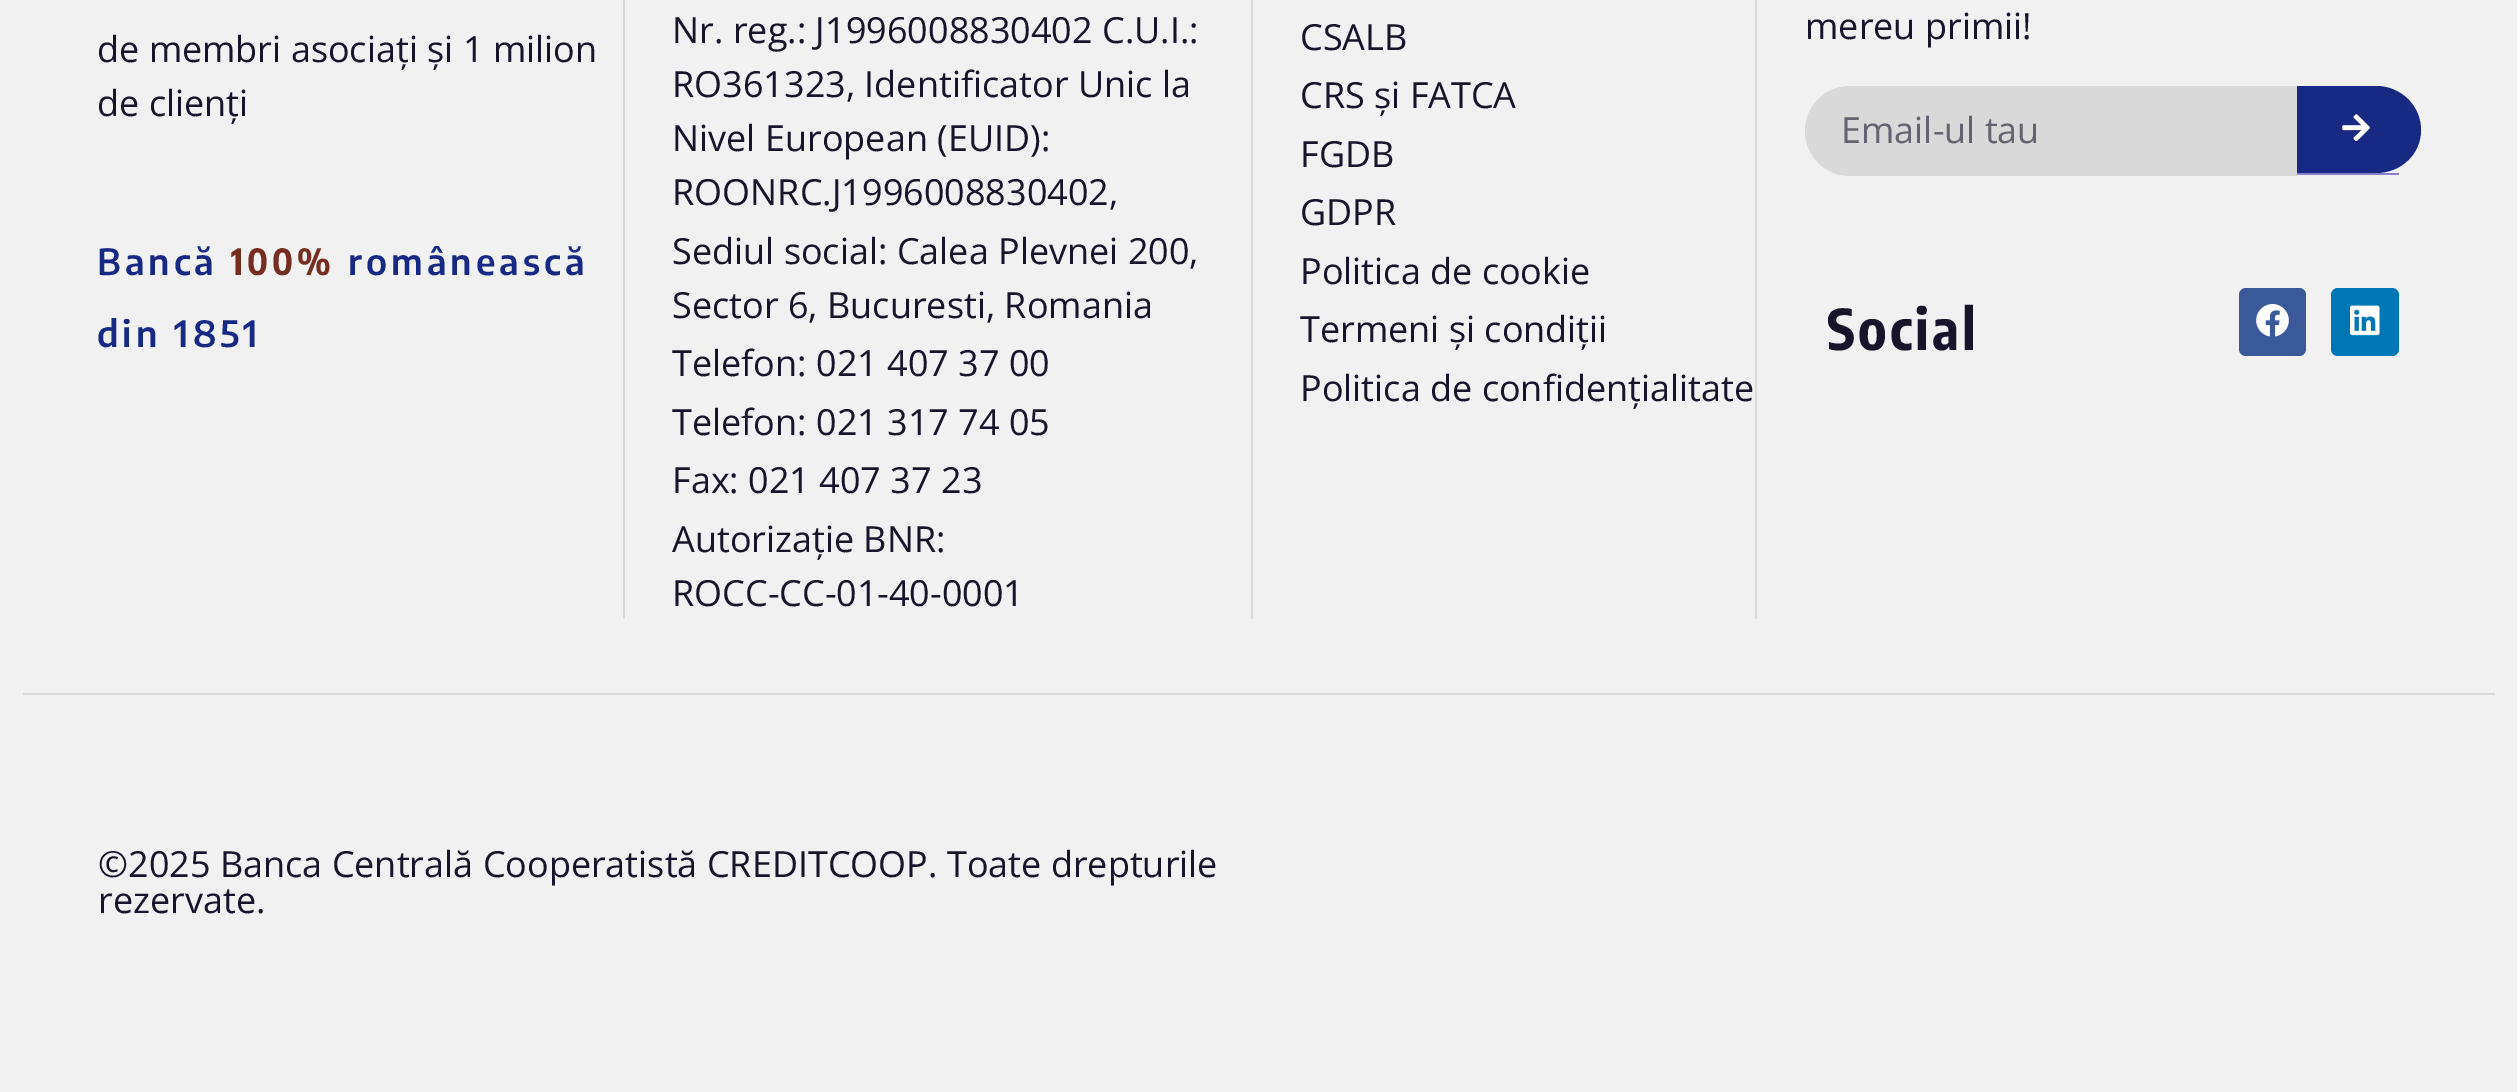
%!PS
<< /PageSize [2517 1092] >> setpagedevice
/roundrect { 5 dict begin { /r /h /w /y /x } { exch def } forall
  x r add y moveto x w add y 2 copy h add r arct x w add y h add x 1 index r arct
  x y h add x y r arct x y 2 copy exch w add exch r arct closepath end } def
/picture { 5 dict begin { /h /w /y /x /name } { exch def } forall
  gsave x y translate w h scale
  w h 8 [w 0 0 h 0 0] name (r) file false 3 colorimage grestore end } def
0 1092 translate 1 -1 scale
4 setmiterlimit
0.945 setgray
0 0 2517 1092 rectfill
0.851 setgray
23 693 2472 2 rectfill
623 0 2 619 rectfill
/OpenSans-Regular [36 0 0 -36 0 0] selectfont
0.094 0.082 0.165 setrgbcolor
97 62 moveto (de membri asociați și 1 milion) show
97 116 moveto (de clienți) show
/EncodeSansCondensed-SemiBold [36 0 0 -36 0 0] selectfont
0.09 0.161 0.514 setrgbcolor
97 275 moveto 4 0 (Bancă) ashow
/EncodeSansCondensed-Bold [36 0 0 -36 0 0] selectfont
0.459 0.18 0.129 setrgbcolor
231 275 moveto 4 0 (100%) ashow
/EncodeSansCondensed-SemiBold [36 0 0 -36 0 0] selectfont
0.09 0.161 0.514 setrgbcolor
348 275 moveto 4 0 (românească) ashow
97 347 moveto 4 0 (din 1851) ashow
0.851 setgray
1251 0 2 619 rectfill
/OpenSans-Regular [36 0 0 -36 0 0] selectfont
0.094 0.082 0.165 setrgbcolor
672 43 moveto (Nr. reg.: J1996008830402 C.U.I.:) show
672 97 moveto (RO361323, Identificator Unic la) show
672 151 moveto (Nivel European \(EUID\):) show
672 205 moveto (ROONRC.J1996008830402,) show
672 264 moveto (Sediul social: Calea Plevnei 200,) show
672 318 moveto (Sector 6, Bucuresti, Romania) show
672 376 moveto (Telefon: 021 407 37 00) show
672 435 moveto (Telefon: 021 317 74 05) show
672 493 moveto (Fax: 021 407 37 23) show
672 552 moveto (Autorizație BNR:) show
672 606 moveto (ROCC-CC-01-40-0001) show
0.851 setgray
1755 0 2 619 rectfill
0.094 0.082 0.165 setrgbcolor
1300 50 moveto (CSALB) show
1300 108 moveto (CRS și FATCA) show
1300 167 moveto (FGDB) show
1300 225 moveto (GDPR) show
1300 284 moveto (Politica de cookie) show
1300 342 moveto (Termeni și condiții) show
1300 401 moveto (Politica de confidențialitate) show
1805 39 moveto (mereu primii!) show
0.851 setgray
newpath 1850 86 moveto 2297 86 lineto 2297 176 lineto 1850 176 lineto 1825 176 1805 156 1805 131 curveto 1805 106 1825 86 1850 86 curveto closepath fill
0.396 0.388 0.439 setrgbcolor
1841 143 moveto (Email-ul tau) show
0.09 0.161 0.514 setrgbcolor
newpath 2297 86 moveto 2376 86 lineto 2401 86 2421 106 2421 130 curveto 2421 154 2401 173 2376 173 curveto 2297 173 lineto closepath fill
0.549 0.486 0.792 setrgbcolor
2297 173 102 2 rectfill
(img1.rgb) 2342 114 28 28 picture
/EncodeSansCondensed-Bold [56 0 0 -56 0 0] selectfont
0.094 0.082 0.165 setrgbcolor
1827 350 moveto 3 0 (Social) ashow
0.231 0.349 0.596 setrgbcolor
2239 288 67 68 7 roundrect fill
(img2.rgb) 2256 304 33 33 picture
0 0.467 0.71 setrgbcolor
2331 288 68 68 7 roundrect fill
(img3.rgb) 2350 305 30 31 picture
/OpenSans-Regular [36 0 0 -36 0 0] selectfont
0.094 0.082 0.165 setrgbcolor
98 877 moveto (©2025 Banca Centrală Cooperatistă CREDITCOOP. Toate drepturile) show
98 913 moveto (rezervate.) show
showpage
